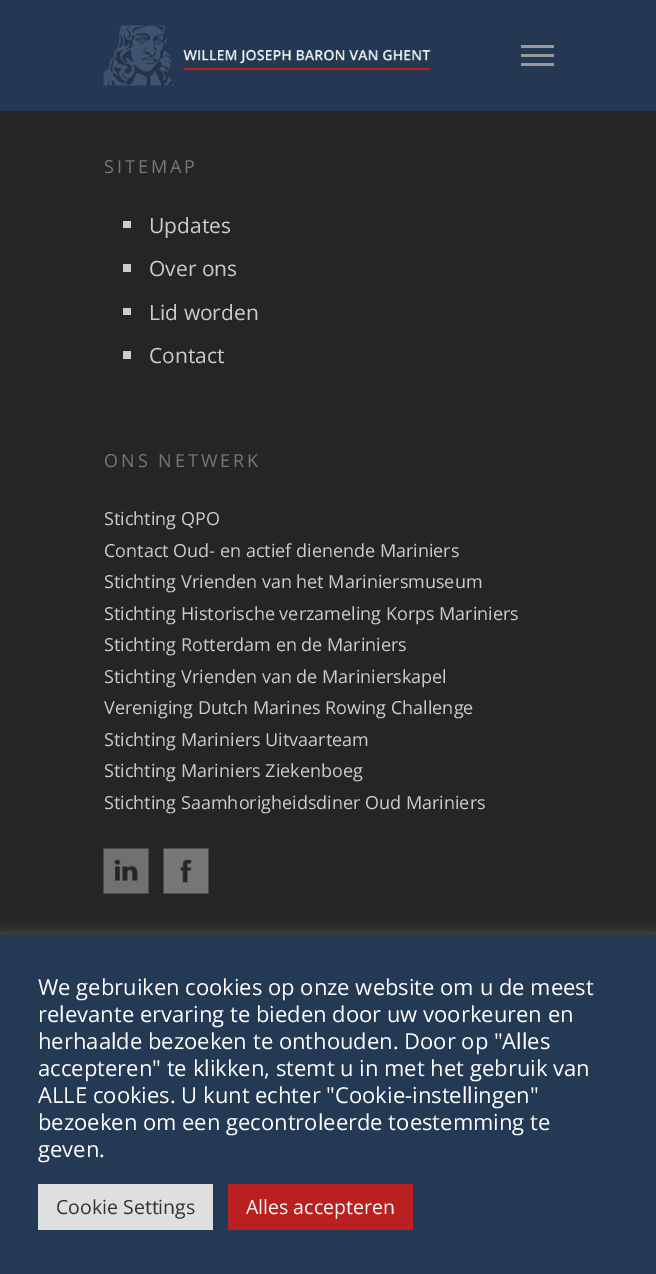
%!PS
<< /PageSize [656 1274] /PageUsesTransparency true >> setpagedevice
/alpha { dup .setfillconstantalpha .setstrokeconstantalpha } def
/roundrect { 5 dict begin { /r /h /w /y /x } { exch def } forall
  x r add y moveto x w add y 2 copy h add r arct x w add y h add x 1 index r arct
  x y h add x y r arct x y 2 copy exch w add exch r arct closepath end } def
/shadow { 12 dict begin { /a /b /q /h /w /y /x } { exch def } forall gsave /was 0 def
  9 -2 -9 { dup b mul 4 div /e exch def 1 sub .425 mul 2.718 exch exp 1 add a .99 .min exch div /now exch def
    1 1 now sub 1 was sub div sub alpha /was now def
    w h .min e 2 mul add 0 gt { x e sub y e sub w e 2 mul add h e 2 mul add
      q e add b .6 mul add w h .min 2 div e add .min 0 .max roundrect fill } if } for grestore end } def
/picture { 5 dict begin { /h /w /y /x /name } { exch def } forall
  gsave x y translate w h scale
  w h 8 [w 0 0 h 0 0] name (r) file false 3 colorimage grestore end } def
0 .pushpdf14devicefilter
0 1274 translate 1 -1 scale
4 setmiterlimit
0.145 setgray
0 0 656 1274 rectfill
0.141 0.22 0.329 setrgbcolor
0 0 656 111 rectfill
(img1.rgb) 103 25 328 61 picture
0.6 setgray
521 45 33 3 rectfill
521 63 33 3 rectfill
521 54 33 3 rectfill
/OpenSans-Regular [18 0 0 -18 0 0] selectfont
0.467 setgray
104 173 moveto 3 0 (SITEMAP) ashow
0.8 setgray
123 221 8 7 rectfill
/OpenSans-Regular [21 0 0 -21 0 0] selectfont
149 233 moveto (Updates) show
123 264 8 8 rectfill
149 276 moveto (Over ons) show
123 308 8 7 rectfill
149 320 moveto (Lid worden) show
123 351 8 8 rectfill
149 363 moveto (Contact) show
/OpenSans-Regular [18 0 0 -18 0 0] selectfont
0.467 setgray
104 467 moveto 3 0 (ONS NETWERK) ashow
0.8 setgray
104 525 moveto (Stichting QPO) show
104 557 moveto (Contact Oud- en actief dienende Mariniers) show
104 588 moveto (Stichting Vrienden van het Mariniersmuseum) show
104 620 moveto (Stichting Historische verzameling Korps Mariniers) show
104 651 moveto (Stichting Rotterdam en de Mariniers) show
104 683 moveto (Stichting Vrienden van de Marinierskapel) show
104 714 moveto (Vereniging Dutch Marines Rowing Challenge) show
104 746 moveto (Stichting Mariniers Uitvaarteam) show
104 777 moveto (Stichting Mariniers Ziekenboeg) show
104 809 moveto (Stichting Saamhorigheidsdiner Oud Mariniers) show
(img2.rgb) 103 848 46 46 picture
(img3.rgb) 163 848 46 46 picture
0.675 0.671 0.671 setrgbcolor
0 933 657 341 0 7.5 0.3 shadow
0.141 0.224 0.329 setrgbcolor
0 935 656 339 rectfill
/OpenSans-Regular [22 0 0 -22 0 0] selectfont
1 setgray
38 995 moveto (We gebruiken cookies op onze website om u de meest) show
38 1022 moveto (relevante ervaring te bieden door uw voorkeuren en) show
38 1049 moveto (herhaalde bezoeken te onthouden. Door op "Alles) show
38 1076 moveto (accepteren" te klikken, stemt u in met het gebruik van) show
38 1103 moveto (ALLE cookies. U kunt echter "Cookie-instellingen") show
38 1130 moveto (bezoeken om een gecontroleerde toestemming te) show
38 1157 moveto (geven.) show
0.871 0.875 0.878 setrgbcolor
38 1184 175 46 rectfill
/OpenSans-Regular [19.5 0 0 -19.5 0 0] selectfont
0.2 setgray
56 1214 moveto (Cookie Settings) show
0.729 0.125 0.125 setrgbcolor
228 1184 185 46 rectfill
1 setgray
246 1214 moveto (Alles accepteren) show
.poppdf14devicefilter showpage
